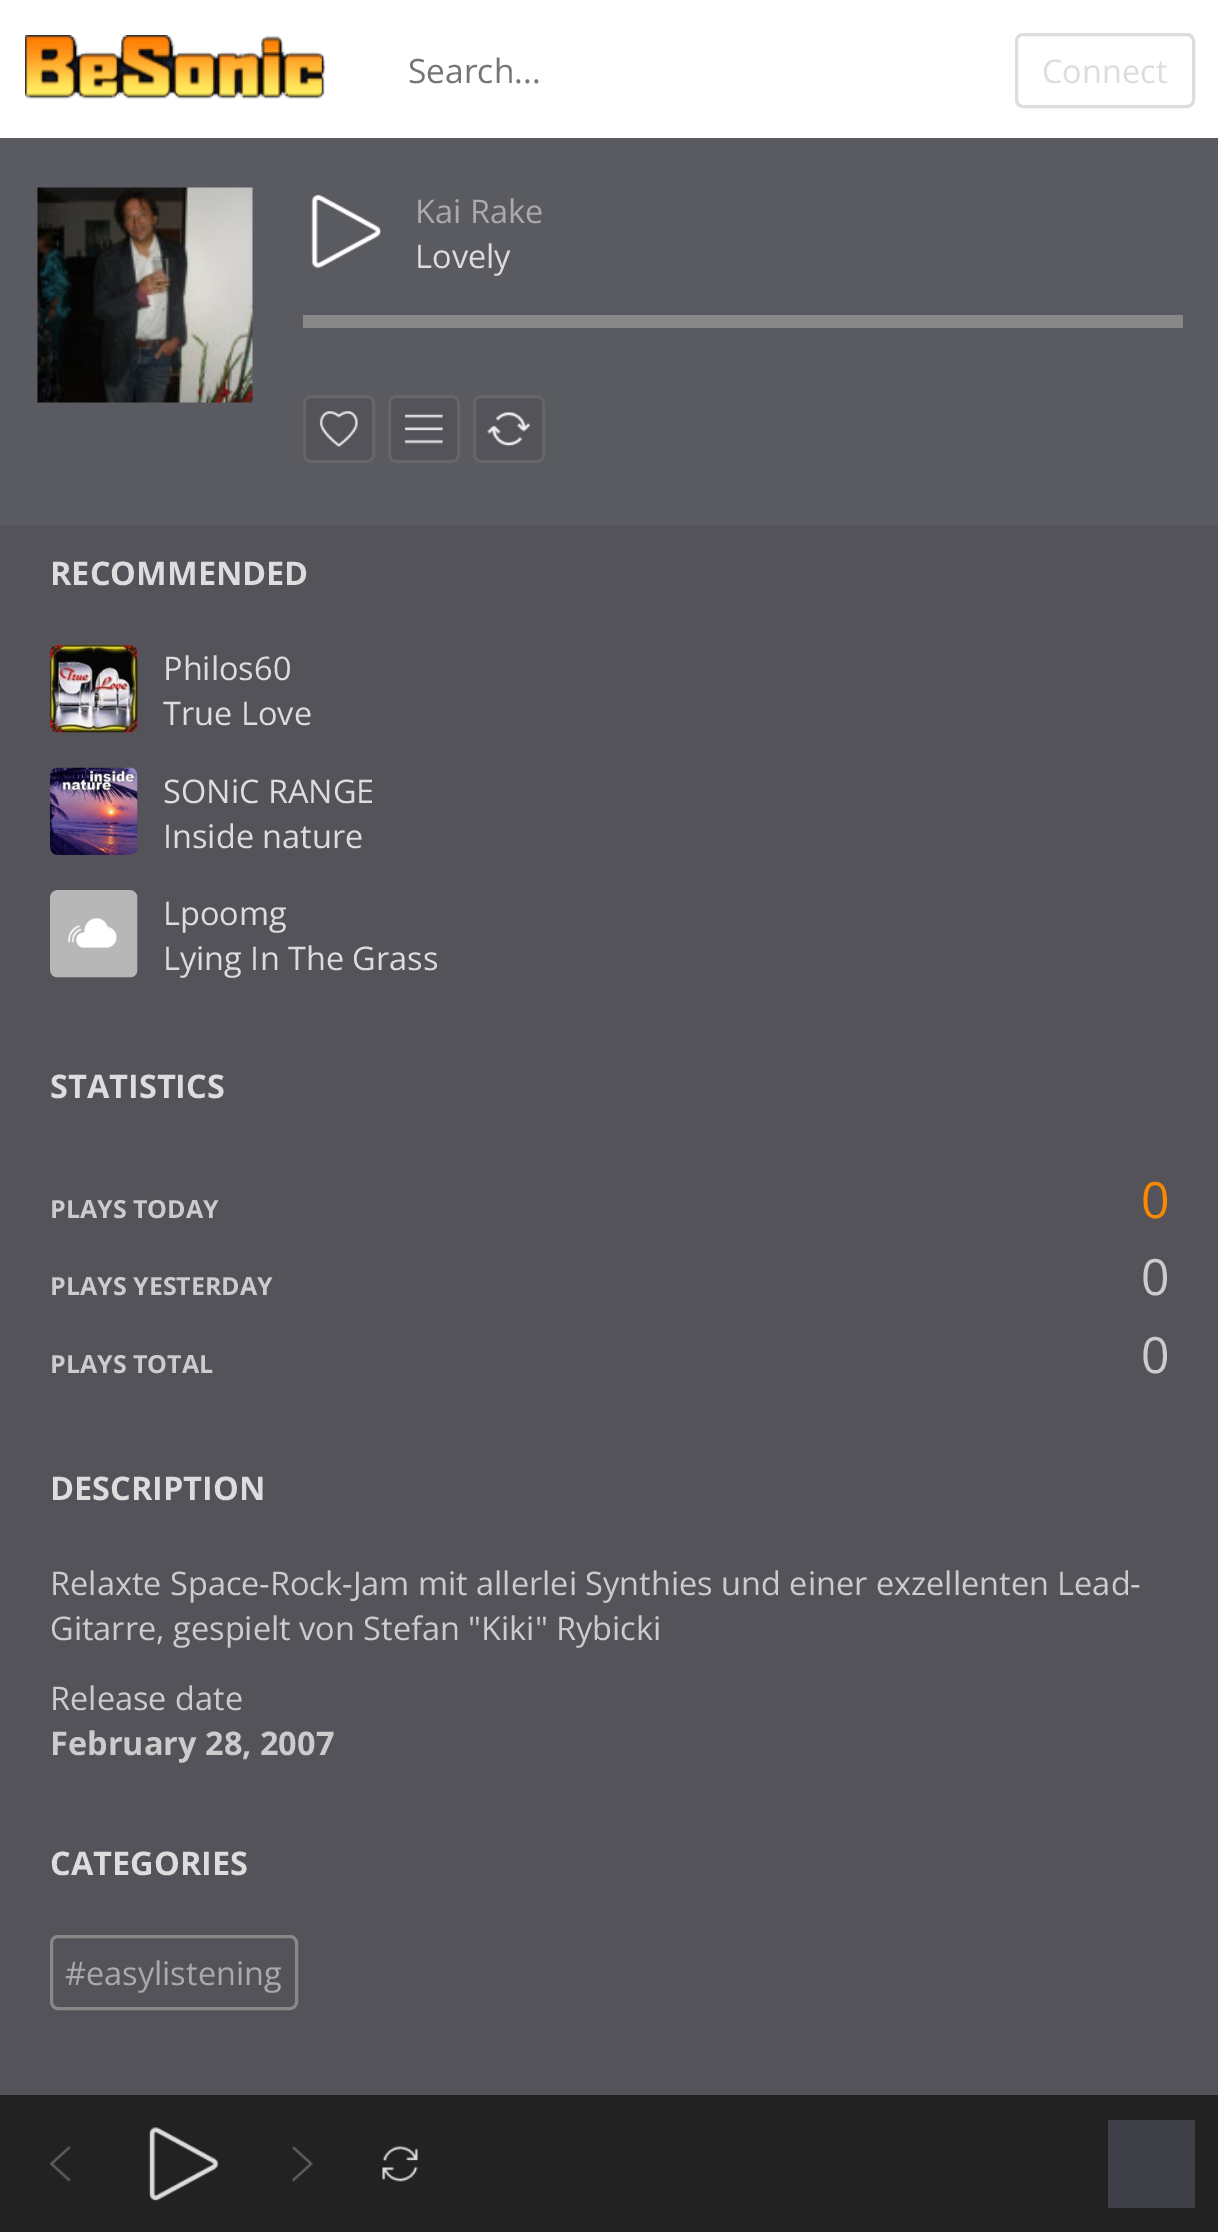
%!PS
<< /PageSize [1218 2232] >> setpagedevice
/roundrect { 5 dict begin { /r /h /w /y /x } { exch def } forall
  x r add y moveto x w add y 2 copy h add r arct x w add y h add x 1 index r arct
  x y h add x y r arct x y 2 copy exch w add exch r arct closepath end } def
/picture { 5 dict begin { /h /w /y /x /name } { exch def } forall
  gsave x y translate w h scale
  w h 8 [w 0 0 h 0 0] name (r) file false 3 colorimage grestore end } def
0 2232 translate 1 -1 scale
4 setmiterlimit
0.325 0.325 0.349 setrgbcolor
0 0 1218 2232 rectfill
1 setgray
0 0 1218 138 rectfill
(img1.rgb) 25 35 300 64 picture
/OpenSans-Regular [33.5 0 0 -33.5 0 0] selectfont
0.459 setgray
408 83 moveto (Search...) show
0.867 setgray
3 setlinewidth
1016.5 34.5 177 72 6.5 roundrect stroke
/OpenSans-Regular [32.5 0 0 -32.5 0 0] selectfont
1042 83 moveto (Connect) show
0.349 0.357 0.38 setrgbcolor
0 138 1218 387 rectfill
(img2.rgb) 37 187 216 216 picture
(img3.rgb) 311 194 71 74 picture
0.667 setgray
415 223 moveto (Kai Rake) show
0.867 setgray
415 268 moveto (Lovely) show
0.533 setgray
303 315 880 13 rectfill
0.325 0.325 0.349 setrgbcolor
303 395 72 68 8 roundrect fill
(img4.rgb) 319 410 39 38 picture
0.4 setgray
304.5 396.5 69 65 6.5 roundrect stroke
0.325 0.325 0.349 setrgbcolor
388 395 72 68 8 roundrect fill
(img5.rgb) 404 413 39 31 picture
0.4 setgray
389.5 396.5 69 65 6.5 roundrect stroke
0.325 0.325 0.349 setrgbcolor
473 395 72 68 8 roundrect fill
(img6.rgb) 487 411 43 36 picture
0.4 setgray
474.5 396.5 69 65 6.5 roundrect stroke
/OpenSans-Bold [32.5 0 0 -32.5 0 0] selectfont
0.867 setgray
50 585 moveto (RECOMMENDED) show
(img7.rgb) 50 645 88 88 picture
/OpenSans-Regular [32.5 0 0 -32.5 0 0] selectfont
163 680 moveto (Philos60) show
163 725 moveto (True Love) show
(img8.rgb) 50 767 88 88 picture
163 803 moveto (SONiC RANGE) show
163 848 moveto (Inside nature) show
(img9.rgb) 50 890 88 88 picture
163 925 moveto (Lpoomg) show
163 970 moveto (Lying In The Grass) show
/OpenSans-Bold [32.5 0 0 -32.5 0 0] selectfont
50 1098 moveto (STATISTICS) show
/OpenSans-Bold [25 0 0 -25 0 0] selectfont
0.8 setgray
50 1218 moveto (PLAYS TODAY) show
/OpenSans-Regular [50 0 0 -50 0 0] selectfont
0.976 0.537 0 setrgbcolor
1141 1218 moveto (0) show
/OpenSans-Bold [25 0 0 -25 0 0] selectfont
0.8 setgray
50 1295 moveto (PLAYS YESTERDAY) show
/OpenSans-Regular [50 0 0 -50 0 0] selectfont
1141 1295 moveto (0) show
/OpenSans-Bold [25 0 0 -25 0 0] selectfont
50 1373 moveto (PLAYS TOTAL) show
/OpenSans-Regular [50 0 0 -50 0 0] selectfont
1141 1373 moveto (0) show
/OpenSans-Bold [32.5 0 0 -32.5 0 0] selectfont
0.867 setgray
50 1500 moveto (DESCRIPTION) show
/OpenSans-Regular [32.5 0 0 -32.5 0 0] selectfont
0.8 setgray
50 1595 moveto (Relaxte Space-Rock-Jam mit allerlei Synthies und einer exzellenten Lead-) show
50 1640 moveto (Gitarre, gespielt von Stefan "Kiki" Rybicki) show
50 1710 moveto (Release date) show
/OpenSans-Bold [32.5 0 0 -32.5 0 0] selectfont
50 1755 moveto (February 28, 2007) show
0.867 setgray
50 1875 moveto (CATEGORIES) show
0.533 setgray
51.5 1936.5 245 72 6.5 roundrect stroke
/OpenSans-Regular [32.5 0 0 -32.5 0 0] selectfont
0.667 setgray
65 1985 moveto (#easylistening) show
0.133 setgray
0 2095 1218 137 rectfill
(img10.rgb) 50 2146 21 36 picture
(img11.rgb) 148 2127 71 74 picture
(img12.rgb) 292 2146 21 36 picture
(img13.rgb) 382 2146 36 36 picture
0.251 0.251 0.282 setrgbcolor
1108 2120 87 88 rectfill
showpage
